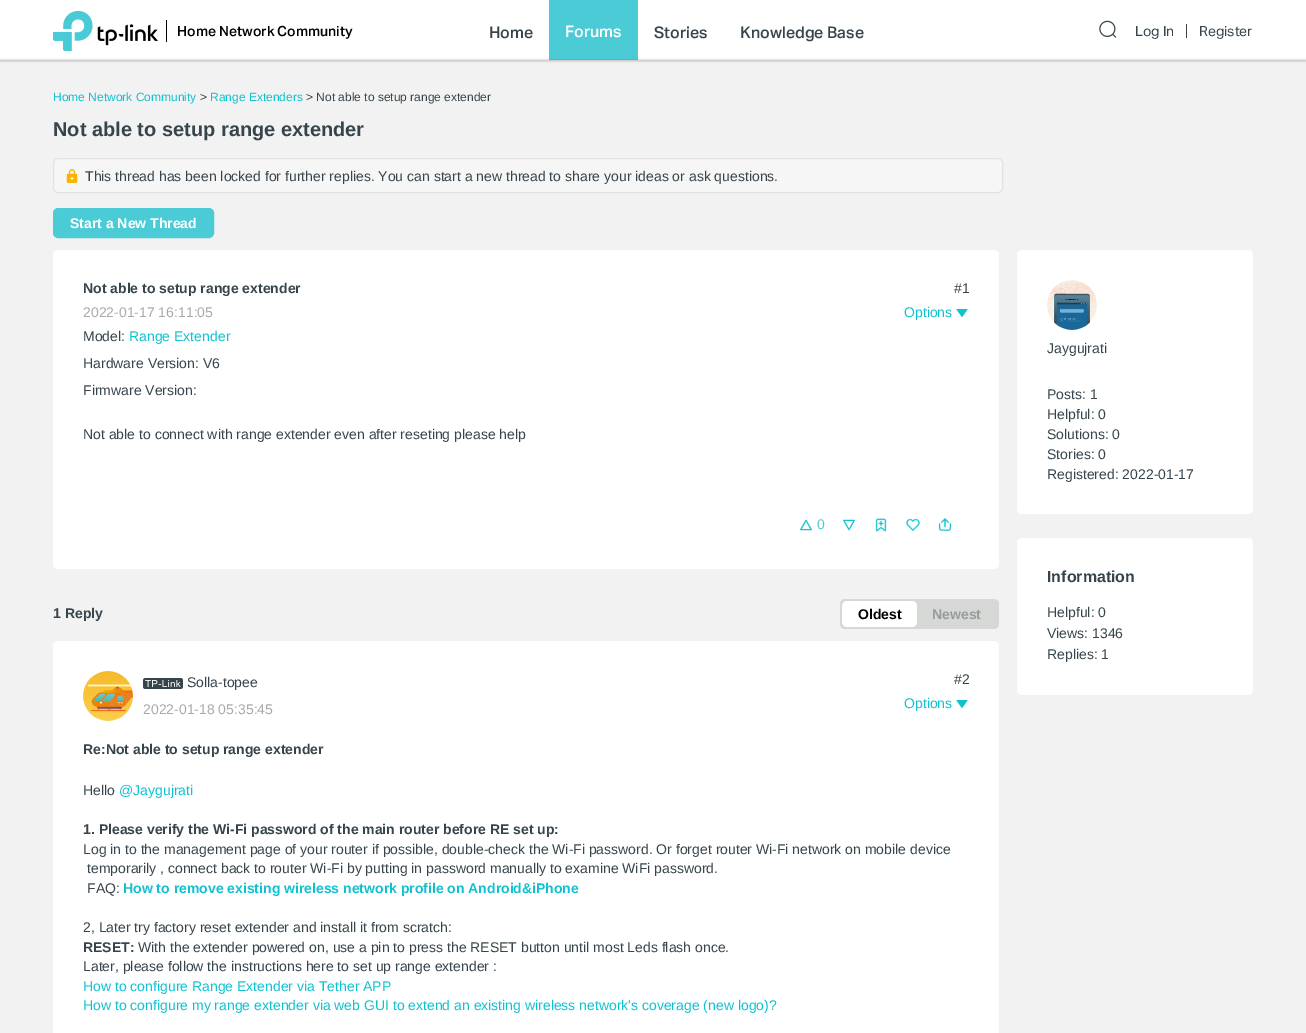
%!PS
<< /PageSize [1306 1033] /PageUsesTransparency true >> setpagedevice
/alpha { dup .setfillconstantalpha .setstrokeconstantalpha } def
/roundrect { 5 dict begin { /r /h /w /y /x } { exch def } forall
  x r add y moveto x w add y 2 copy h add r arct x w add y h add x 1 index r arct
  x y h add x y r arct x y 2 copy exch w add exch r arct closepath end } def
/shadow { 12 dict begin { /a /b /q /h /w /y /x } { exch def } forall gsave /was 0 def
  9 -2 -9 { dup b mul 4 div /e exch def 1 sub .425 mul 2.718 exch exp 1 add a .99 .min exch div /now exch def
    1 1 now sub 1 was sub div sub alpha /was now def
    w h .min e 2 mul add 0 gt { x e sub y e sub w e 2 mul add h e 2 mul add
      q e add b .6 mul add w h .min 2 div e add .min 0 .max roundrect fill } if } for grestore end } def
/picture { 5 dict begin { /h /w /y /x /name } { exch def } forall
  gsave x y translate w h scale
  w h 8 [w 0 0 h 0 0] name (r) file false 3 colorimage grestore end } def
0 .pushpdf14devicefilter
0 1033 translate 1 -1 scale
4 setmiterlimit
0.949 setgray
0 0 1306 1033 rectfill
1 setgray
0 0 1306 60 rectfill
(img1.rgb) 53 11 105 40 picture
0 setgray
166 20 1 22 rectfill
/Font-Medium [14 0 0 -14 0 0] selectfont
177 36 moveto (Home Network Community) show
/Font-Medium [16 0 0 -16 0 0] selectfont
0.212 0.267 0.294 setrgbcolor
489 38 moveto (Home) show
0.29 0.796 0.839 setrgbcolor
549 0 89 60 rectfill
1 setgray
565 37 moveto (Forums) show
0.212 0.267 0.294 setrgbcolor
654 38 moveto (Stories) show
740 38 moveto (Knowledge Base) show
(img2.rgb) 1099 20 18 18 picture
1186 24 1 14 rectfill
/Font-Regular [14 0 0 -14 0 0] selectfont
1135 36 moveto (Log In) show
1199 36 moveto (Register) show
0.129 setgray
0 60 1306 1 0 1 0.3 shadow
/LiberationSans-Regular [12 0 0 -12 0 0] selectfont
0.063 0.757 0.816 setrgbcolor
53 101 moveto (Home Network Community) show
0.212 0.267 0.294 setrgbcolor
200 101 moveto (>) show
0.063 0.757 0.816 setrgbcolor
210 101 moveto (Range Extenders) show
0.212 0.267 0.294 setrgbcolor
306 101 moveto (> Not able to setup range extender) show
/LiberationSans-Bold [20 0 0 -20 0 0] selectfont
53 136 moveto (Not able to setup range extender) show
0.965 setgray
53.5 158.5 949 34 4.5 roundrect gsave fill grestore
0.886 setgray
stroke
(img3.rgb) 66 169 12 14 picture
/LiberationSans-Regular [14 0 0 -14 0 0] selectfont
0.212 0.267 0.294 setrgbcolor
85 181 moveto (This thread has been locked for further replies. You can start a new thread to share your ideas or ask questions.) show
0.29 0.796 0.839 setrgbcolor
53.5 208.5 160 29 4.5 roundrect gsave fill grestore
stroke
/LiberationSans-Bold [14 0 0 -14 0 0] selectfont
1 setgray
70 228 moveto (Start a New Thread) show
53 250 946 319 5 roundrect fill
0.212 0.267 0.294 setrgbcolor
83 293 moveto (Not able to setup range extender) show
/LiberationSans-Regular [14 0 0 -14 0 0] selectfont
0.655 0.663 0.675 setrgbcolor
83 317 moveto (2022-01-17 16:11:05) show
0.212 0.267 0.294 setrgbcolor
83 341 moveto (Model:) show
0.063 0.757 0.816 setrgbcolor
129 341 moveto (Range Extender) show
0.212 0.267 0.294 setrgbcolor
83 368 moveto (Hardware Version: V6) show
83 395 moveto (Firmware Version:) show
83 439 moveto (Not able to connect with range extender even after reseting please help) show
(img4.rgb) 800 519 12 12 picture
0.29 0.796 0.839 setrgbcolor
817 529 moveto (0) show
(img5.rgb) 843 519 12 12 picture
(img6.rgb) 875 518 12 14 picture
(img7.rgb) 906 518 14 13 picture
(img8.rgb) 938 518 14 13 picture
0.212 0.267 0.294 setrgbcolor
954 293 moveto (#1) show
0.063 0.757 0.816 setrgbcolor
904 317 moveto (Options) show
(img9.rgb) 956 309 12 8 picture
/LiberationSans-Bold [14 0 0 -14 0 0] selectfont
0.212 0.267 0.294 setrgbcolor
53 618 moveto (1 Reply) show
0.839 0.847 0.839 setrgbcolor
840 599 159 30 5 roundrect fill
1 setgray
842 601 75 26 5 roundrect fill
0 setgray
858 619 moveto (Oldest) show
0.596 0.608 0.616 setrgbcolor
932 619 moveto (Newest) show
1 setgray
53 641 946 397 5 roundrect fill
(img10.rgb) 83 671 50 50 picture
(img11.rgb) 143 678 40 11 picture
/LiberationSans-Regular [14 0 0 -14 0 0] selectfont
0.212 0.267 0.294 setrgbcolor
187 687 moveto (Solla-topee) show
0.655 0.663 0.675 setrgbcolor
143 714 moveto (2022-01-18 05:35:45) show
0.212 0.267 0.294 setrgbcolor
954 684 moveto (#2) show
0.063 0.757 0.816 setrgbcolor
904 708 moveto (Options) show
(img9.rgb) 956 700 12 8 picture
/LiberationSans-Bold [14 0 0 -14 0 0] selectfont
0.212 0.267 0.294 setrgbcolor
83 754 moveto (Re:Not able to setup range extender) show
/LiberationSans-Regular [14 0 0 -14 0 0] selectfont
83 795 moveto (Hello) show
0.063 0.757 0.816 setrgbcolor
119 795 moveto (@Jaygujrati) show
/LiberationSans-Bold [14 0 0 -14 0 0] selectfont
0.212 0.267 0.294 setrgbcolor
83 834 moveto (1. Please verify the Wi-Fi password of the main router before RE set up:) show
/LiberationSans-Regular [14 0 0 -14 0 0] selectfont
83 854 moveto (Log in to the management page of your router if possible, double-check the Wi-Fi password. Or forget router Wi-Fi network on mobile device) show
87 873 moveto (temporarily , connect back to router Wi-Fi by putting in password manually to examine WiFi password.) show
87 893 moveto (FAQ:) show
/LiberationSans-Bold [14 0 0 -14 0 0] selectfont
0.063 0.757 0.816 setrgbcolor
123 893 moveto (How to remove existing wireless network profile on Android&iPhone) show
/LiberationSans-Regular [14 0 0 -14 0 0] selectfont
0.212 0.267 0.294 setrgbcolor
83 932 moveto (2, Later try factory reset extender and install it from scratch:) show
/LiberationSans-Bold [14 0 0 -14 0 0] selectfont
83 952 moveto (RESET:) show
/LiberationSans-Regular [14 0 0 -14 0 0] selectfont
138 952 moveto (With the extender powered on, use a pin to press the RESET button until most Leds flash once.) show
83 971 moveto (Later, please follow the instructions here to set up range extender :) show
0.063 0.757 0.816 setrgbcolor
83 991 moveto (How to configure Range Extender via Tether APP) show
83 1010 moveto (How to configure my range extender via web GUI to extend an existing wireless network's coverage \(new logo\)?) show
1 setgray
1017 250 236 264 5 roundrect fill
(img12.rgb) 1047 280 50 50 picture
0.212 0.267 0.294 setrgbcolor
1047 353 moveto (Jaygujrati) show
1047 399 moveto (Posts: 1) show
1047 419 moveto (Helpful: 0) show
1047 439 moveto (Solutions: 0) show
1047 459 moveto (Stories: 0) show
1047 479 moveto (Registered: 2022-01-17) show
1 setgray
1017 538 236 157 5 roundrect fill
/LiberationSans-Bold [16 0 0 -16 0 0] selectfont
0.212 0.267 0.294 setrgbcolor
1047 582 moveto (Information) show
/LiberationSans-Regular [14 0 0 -14 0 0] selectfont
1047 617 moveto (Helpful: 0) show
1047 638 moveto (Views: 1346) show
1047 659 moveto (Replies: 1) show
.poppdf14devicefilter showpage
